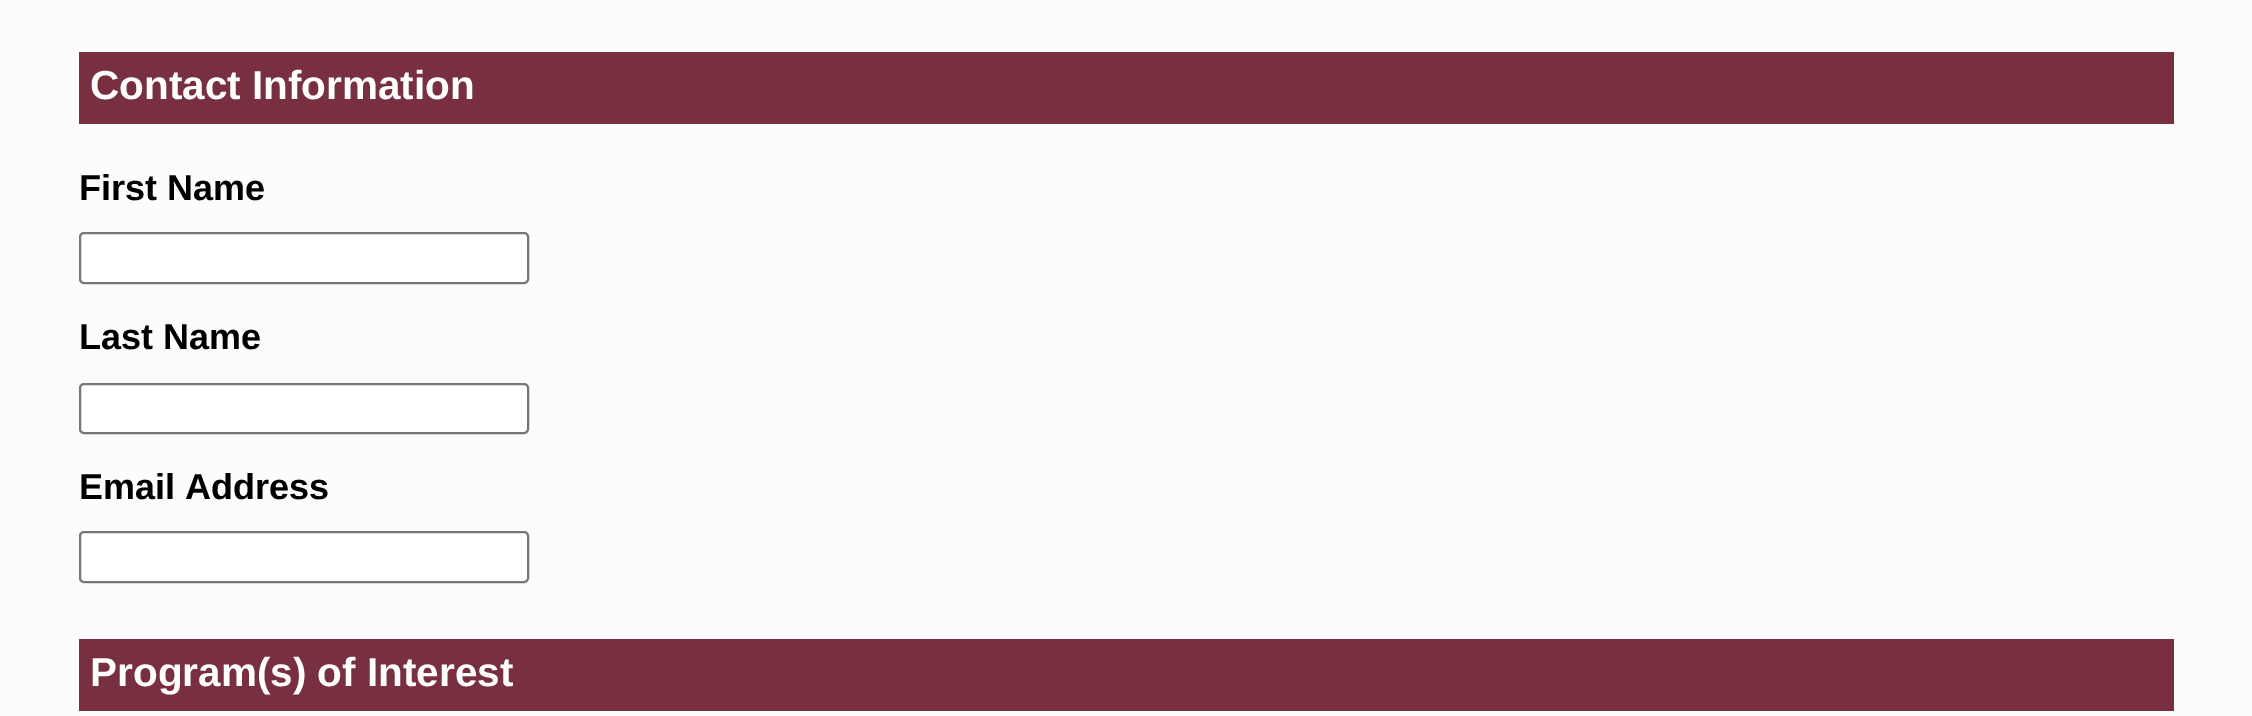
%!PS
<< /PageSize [2252 716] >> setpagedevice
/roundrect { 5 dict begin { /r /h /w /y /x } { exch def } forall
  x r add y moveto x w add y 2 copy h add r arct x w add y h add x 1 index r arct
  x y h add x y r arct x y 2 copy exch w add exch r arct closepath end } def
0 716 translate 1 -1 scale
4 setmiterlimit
0.992 0.988 0.988 setrgbcolor
0 0 2252 716 rectfill
0.471 0.184 0.251 setrgbcolor
79 52 2095 72 rectfill
/LiberationSans-Bold [40.5 0 0 -40.5 0 0] selectfont
1 setgray
90 99 moveto (Contact Information) show
/LiberationSans-Bold [36 0 0 -36 0 0] selectfont
0 setgray
79 200 moveto (First Name) show
1 setgray
80 233 448 50 4 roundrect gsave fill grestore
0.463 setgray
2 setlinewidth
stroke
0 setgray
79 349 moveto (Last Name) show
1 setgray
80 384 448 49 4 roundrect gsave fill grestore
0.463 setgray
stroke
0 setgray
79 499 moveto (Email Address) show
1 setgray
80 532 448 50 4 roundrect gsave fill grestore
0.463 setgray
stroke
0.471 0.184 0.251 setrgbcolor
79 639 2095 72 rectfill
/LiberationSans-Bold [40.5 0 0 -40.5 0 0] selectfont
1 setgray
90 686 moveto (Program\(s\) of Interest) show
showpage
